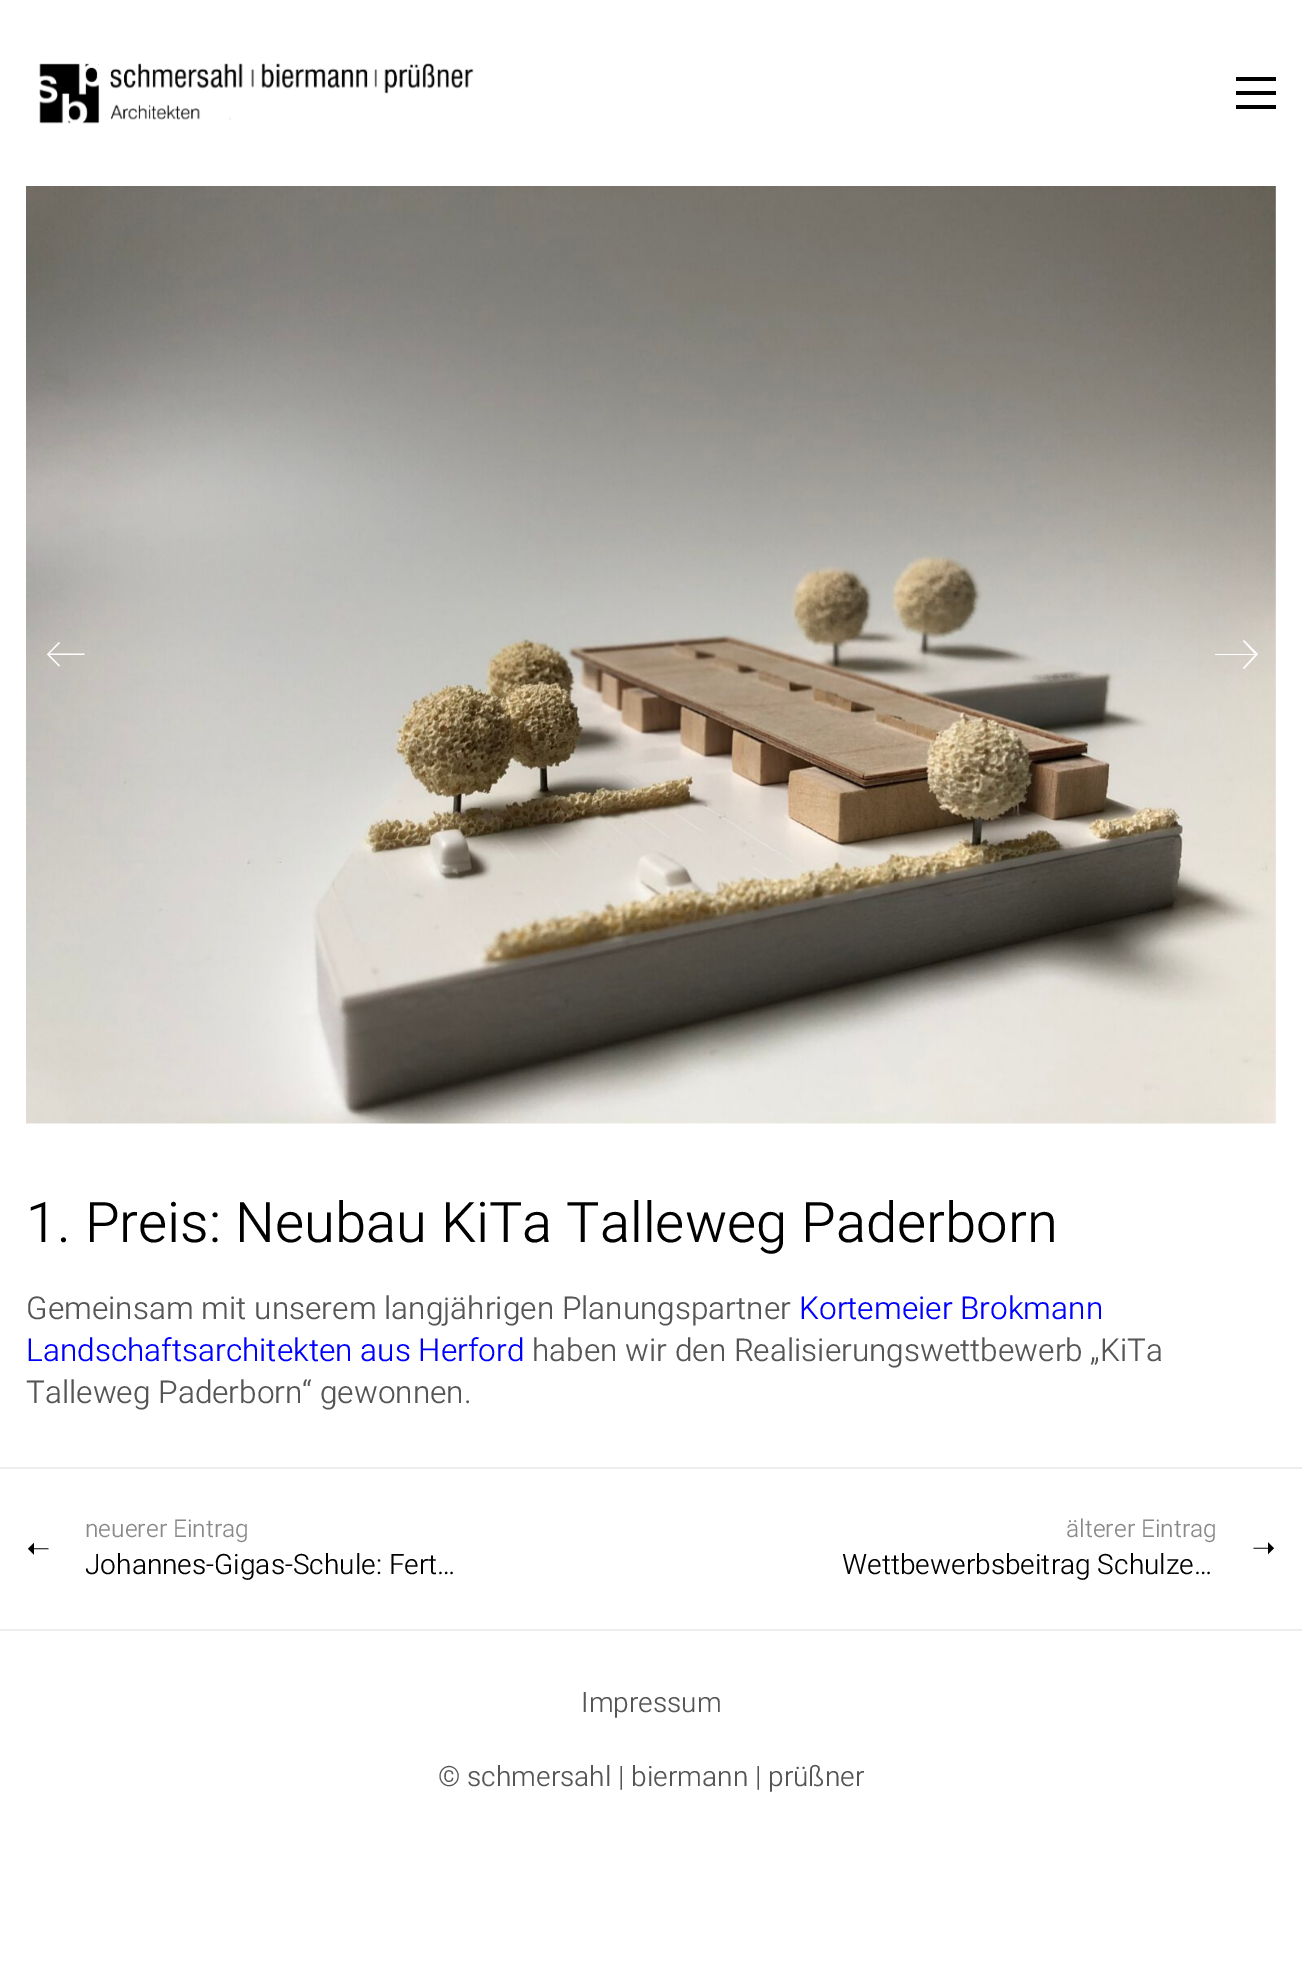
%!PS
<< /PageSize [1302 1983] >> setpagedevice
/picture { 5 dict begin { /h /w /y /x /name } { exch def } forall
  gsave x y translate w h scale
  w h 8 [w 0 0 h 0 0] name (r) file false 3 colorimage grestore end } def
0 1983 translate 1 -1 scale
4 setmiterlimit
1 setgray
0 0 1302 1983 rectfill
(img1.rgb) 39 63 435 61 picture
0 setgray
1236 77 40 4 rectfill
1236 91 40 4 rectfill
1236 105 40 4 rectfill
(img2.rgb) 26 186 1250 938 picture
1 setgray
newpath 84.5 653.5 moveto 49.5 653.5 lineto 60 643 lineto 59 642 lineto 47 654.5 lineto 59 666.5 lineto 60 665.5 lineto 49.5 655 lineto 84.5 655 lineto closepath fill
newpath 1244 640 moveto 1243 641 lineto 1255 654 lineto 1215 654 lineto 1215 655 lineto 1255 655 lineto 1243 668 lineto 1244 669 lineto 1258 654 lineto closepath fill
/Heebo-Light [56 0 0 -56 0 0] selectfont
0 setgray
26 1242 moveto (1. Preis: Neubau KiTa Talleweg Paderborn) show
/Heebo-Light [31.5 0 0 -31.5 0 0] selectfont
0.333 setgray
26 1319 moveto (Gemeinsam mit unserem langjährigen Planungspartner) show
0 0 1 setrgbcolor
799 1319 moveto (Kortemeier Brokmann) show
26 1361 moveto (Landschaftsarchitekten aus Herford) show
0.333 setgray
532 1361 moveto (haben wir den Realisierungswettbewerb „KiTa) show
26 1403 moveto (Talleweg Paderborn“ gewonnen.) show
0.933 setgray
0 1467 1302 2 rectfill
0 1629 1302 2 rectfill
/DejaVuSans-Regular [28 0 0 -28 0 0] selectfont
0 setgray
gsave 50 1540 translate 180 rotate 0 0 moveto (➝) show grestore
/Heebo-Light [24.5 0 0 -24.5 0 0] selectfont
0.537 setgray
85 1537 moveto (neuerer Eintrag) show
/Heebo-Light [28 0 0 -28 0 0] selectfont
0 setgray
85 1574 moveto (Johannes-Gigas-Schule: Fert…) show
/Heebo-Light [24.5 0 0 -24.5 0 0] selectfont
0.537 setgray
1066 1537 moveto (älterer Eintrag) show
/Heebo-Light [28 0 0 -28 0 0] selectfont
0 setgray
842 1574 moveto (Wettbewerbsbeitrag Schulze…) show
/DejaVuSans-Regular [28 0 0 -28 0 0] selectfont
1252 1557 moveto (➝) show
/Heebo-Light [28 0 0 -28 0 0] selectfont
0.333 setgray
581 1712 moveto (Impressum) show
438 1786 moveto (© schmersahl | biermann | prüßner) show
showpage
